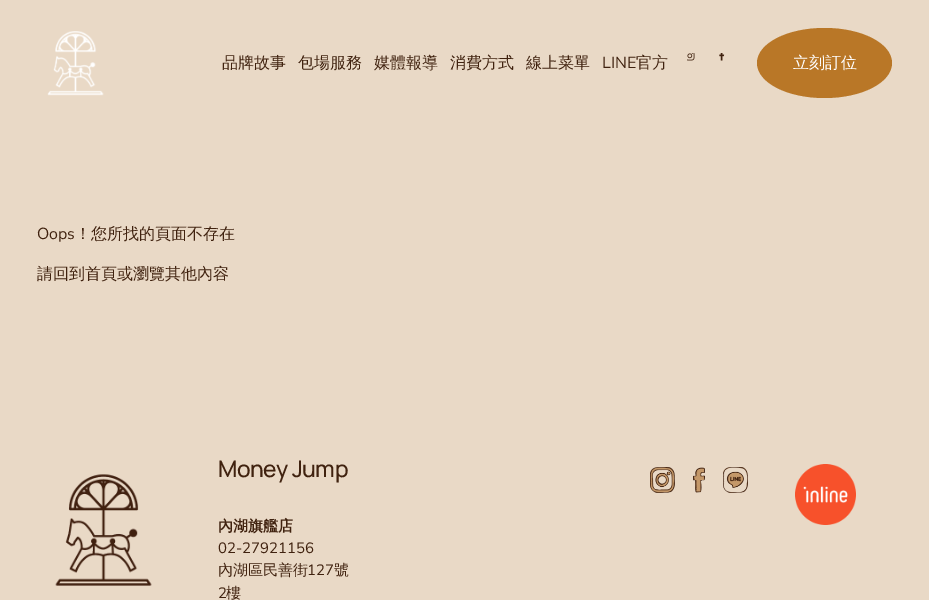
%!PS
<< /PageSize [929 600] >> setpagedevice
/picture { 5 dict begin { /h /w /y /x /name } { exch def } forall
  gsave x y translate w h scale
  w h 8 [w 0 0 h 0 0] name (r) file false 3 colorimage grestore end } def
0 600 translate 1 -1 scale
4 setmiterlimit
0.914 0.851 0.776 setrgbcolor
0 0 929 600 rectfill
(img1.rgb) 47 31 57 65 picture
/WenQuanYiZenHei-Medium [16 0 0 -16 0 0] selectfont
0.251 0.133 0.059 setrgbcolor
222 68 moveto (品牌故事) show
298 68 moveto (包場服務) show
374 68 moveto (媒體報導) show
450 68 moveto (消費方式) show
526 68 moveto (線上菜單) show
/NunitoSans-Regular [16 0 0 -16 0 0] selectfont
602 68 moveto (LINE) show
/WenQuanYiZenHei-Medium [16 0 0 -16 0 0] selectfont
636 68 moveto (官方) show
(img2.rgb) 687 53 8 8 picture
(img3.rgb) 719 53 6 8 picture
0.725 0.467 0.153 setrgbcolor
newpath 824.5 28 moveto 862 28 892 43.5 892 63 curveto 892 82.5 862 98 824.5 98 curveto 787 98 757 82.5 757 63 curveto 757 43.5 787 28 824.5 28 curveto closepath fill
1 setgray
793 68 moveto (立刻訂位) show
/NunitoSans-Regular [16 0 0 -16 0 0] selectfont
0.251 0.133 0.059 setrgbcolor
37 239 moveto (Oops) show
/WenQuanYiZenHei-Medium [16 0 0 -16 0 0] selectfont
75 239 moveto (！您所找的頁面不存在) show
37 279 moveto (請回到首頁或瀏覽其他內容) show
(img4.rgb) 55 474 97 112 picture
/Manrope-Medium [22.75 0 0 -22.75 0 0] selectfont
218 477 moveto -0.5 0 (Money Jump) ashow
/WenQuanYiZenHei-Bold [15 0 0 -15 0 0] selectfont
218 531 moveto (內湖旗艦店) show
/NunitoSans-Regular [15 0 0 -15 0 0] selectfont
218 553 moveto (02-27921156) show
/WenQuanYiZenHei-Medium [15 0 0 -15 0 0] selectfont
218 575 moveto (內湖區民善街) show
/NunitoSans-Regular [15 0 0 -15 0 0] selectfont
307 575 moveto (127) show
/WenQuanYiZenHei-Medium [15 0 0 -15 0 0] selectfont
334 575 moveto (號) show
/NunitoSans-Regular [15 0 0 -15 0 0] selectfont
218 598 moveto (2) show
/WenQuanYiZenHei-Medium [15 0 0 -15 0 0] selectfont
226 598 moveto (樓) show
(img5.rgb) 650 467 25 26 picture
(img6.rgb) 693 467 12 26 picture
(img7.rgb) 723 467 25 26 picture
(img8.rgb) 795 464 61 61 picture
showpage
